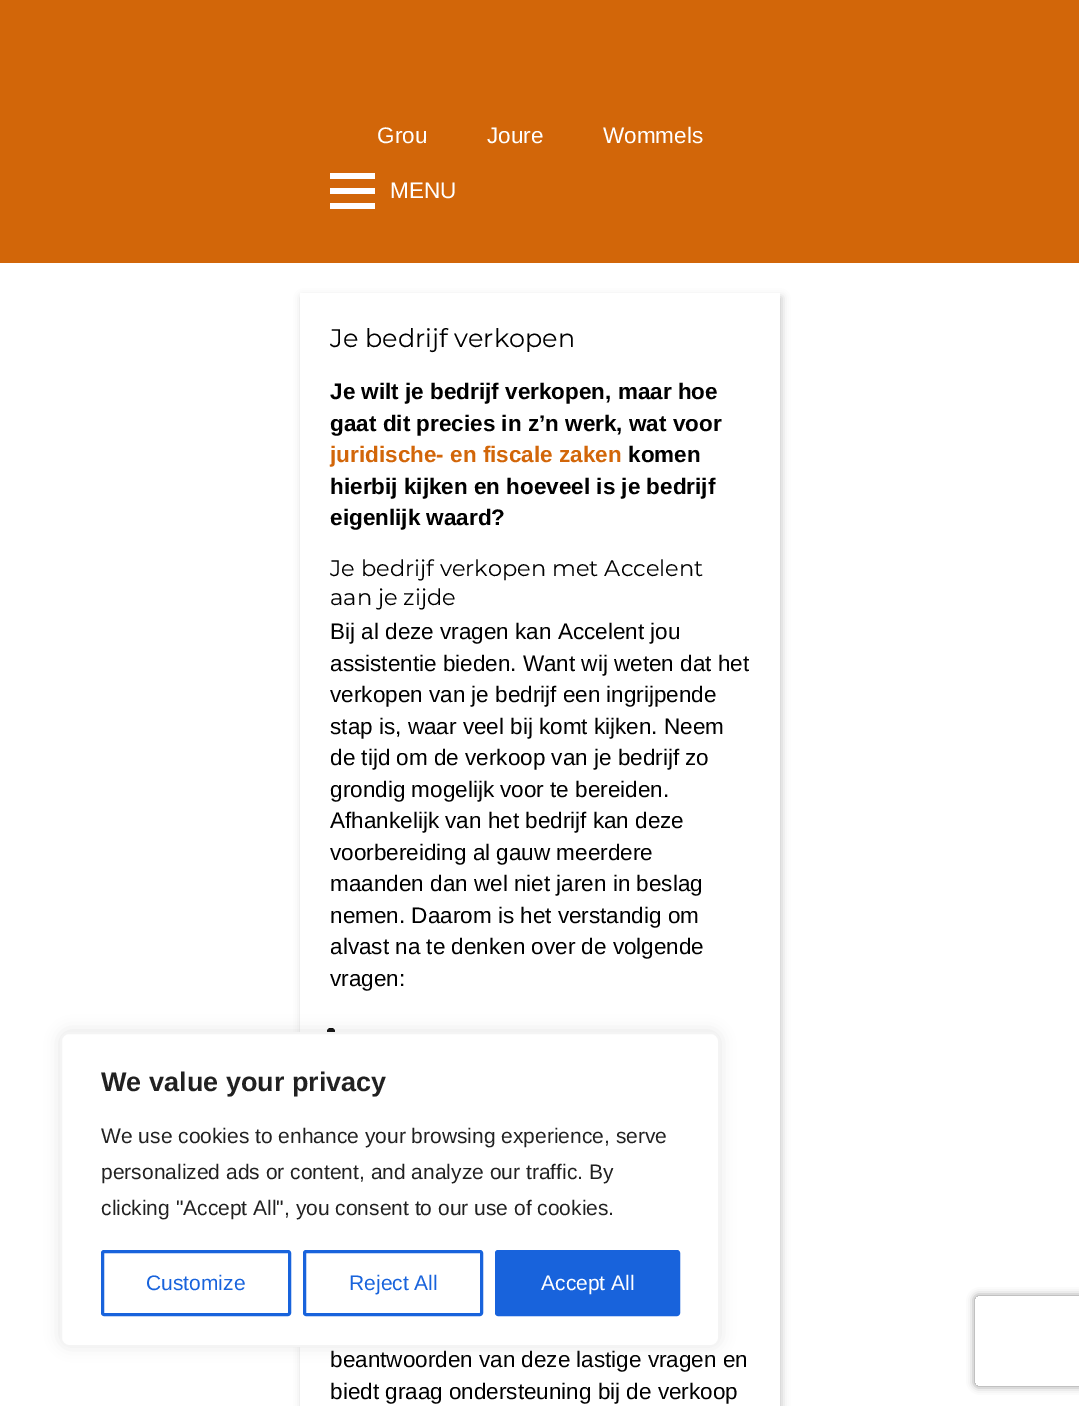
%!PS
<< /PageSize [1079 1406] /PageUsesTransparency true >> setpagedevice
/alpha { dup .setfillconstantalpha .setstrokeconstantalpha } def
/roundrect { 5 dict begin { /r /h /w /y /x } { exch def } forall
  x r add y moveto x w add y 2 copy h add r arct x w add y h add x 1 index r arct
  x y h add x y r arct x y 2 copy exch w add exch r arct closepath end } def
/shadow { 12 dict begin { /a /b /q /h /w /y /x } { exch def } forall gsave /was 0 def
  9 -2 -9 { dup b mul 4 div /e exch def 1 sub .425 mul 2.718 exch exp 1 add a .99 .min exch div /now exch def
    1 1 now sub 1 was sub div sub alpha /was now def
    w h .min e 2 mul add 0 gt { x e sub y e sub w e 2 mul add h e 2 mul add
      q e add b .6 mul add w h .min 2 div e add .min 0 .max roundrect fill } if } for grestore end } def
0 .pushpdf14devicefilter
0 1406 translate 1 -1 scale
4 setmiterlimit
1 setgray
0 0 1079 1406 rectfill
0.824 0.4 0.035 setrgbcolor
0 0 1079 263 rectfill
/LiberationSans-Regular [22.5 0 0 -22.5 0 0] selectfont
1 setgray
377 143 moveto (Grou) show
487 143 moveto (Joure) show
603 143 moveto (Wommels) show
330 173 45 6 rectfill
330 188 45 6 rectfill
330 203 45 6 rectfill
390 198 moveto (MENU) show
gsave
newpath 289 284 moveto 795 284 lineto 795 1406 lineto 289 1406 lineto closepath 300 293 moveto 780 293 lineto 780 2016 lineto 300 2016 lineto closepath eoclip newpath
0 setgray
302 297 480 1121 0 4 0.2 shadow
grestore
/Montserrat-Regular [25.5 0 0 -25.5 0 0] selectfont
0 setgray
330 347 moveto (Je bedrijf verkopen) show
/LiberationSans-Bold [22.5 0 0 -22.5 0 0] selectfont
330 399 moveto (Je wilt je bedrijf verkopen, maar hoe) show
330 431 moveto (gaat dit precies in z’n werk, wat voor) show
0.824 0.4 0.035 setrgbcolor
330 462 moveto (juridische- en fiscale zaken) show
0 setgray
628 462 moveto (komen) show
330 494 moveto (hierbij kijken en hoeveel is je bedrijf) show
330 525 moveto (eigenlijk waard?) show
/Montserrat-Regular [22.5 0 0 -22.5 0 0] selectfont
330 576 moveto (Je bedrijf verkopen met Accelent) show
330 605 moveto (aan je zijde) show
/LiberationSans-Regular [22.5 0 0 -22.5 0 0] selectfont
330 639 moveto (Bij al deze vragen kan Accelent jou) show
330 671 moveto (assistentie bieden. Want wij weten dat het) show
330 702 moveto (verkopen van je bedrijf een ingrijpende) show
330 734 moveto (stap is, waar veel bij komt kijken. Neem) show
330 765 moveto (de tijd om de verkoop van je bedrijf zo) show
330 797 moveto (grondig mogelijk voor te bereiden.) show
330 828 moveto (Afhankelijk van het bedrijf kan deze) show
330 860 moveto (voorbereiding al gauw meerdere) show
330 891 moveto (maanden dan wel niet jaren in beslag) show
330 923 moveto (nemen. Daarom is het verstandig om) show
330 954 moveto (alvast na te denken over de volgende) show
330 986 moveto (vragen:) show
327 1028 8 7 3.5 roundrect fill
330 1367 moveto (beantwoorden van deze lastige vragen en) show
330 1399 moveto (biedt graag ondersteuning bij de verkoop) show
0.675 0.671 0.671 setrgbcolor
60 1031 660 315 9 7.5 0.3 shadow
1 setgray
61 1033 658 313 8 roundrect gsave fill grestore
0.957 setgray
2 setlinewidth
stroke
/LiberationSans-Bold [27 0 0 -27 0 0] selectfont
0.129 setgray
101 1091 moveto (We value your privacy) show
/LiberationSans-Regular [21 0 0 -21 0 0] selectfont
101 1143 moveto (We use cookies to enhance your browsing experience, serve) show
101 1179 moveto (personalized ads or content, and analyze our traffic. By) show
101 1215 moveto (clicking "Accept All", you consent to our use of cookies.) show
0.094 0.388 0.863 setrgbcolor
3 setlinewidth
102.5 1251.5 187 63 1.5 roundrect stroke
146 1290 moveto (Customize) show
304.5 1251.5 177 63 1.5 roundrect stroke
349 1290 moveto (Reject All) show
496.5 1251.5 182 63 1.5 roundrect gsave fill grestore
stroke
1 setgray
541 1290 moveto (Accept All) show
gsave
newpath 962 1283 moveto 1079 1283 lineto 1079 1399 lineto 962 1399 lineto closepath 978 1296 moveto 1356 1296 lineto 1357.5 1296 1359 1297.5 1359 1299 curveto 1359 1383 lineto 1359 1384.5 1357.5 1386 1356 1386 curveto 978 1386 lineto 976.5 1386 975 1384.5 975 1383 curveto 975 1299 lineto 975 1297.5 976.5 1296 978 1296 curveto closepath eoclip newpath
0.502 setgray
975 1296 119 90 3 4 1 shadow
grestore
.poppdf14devicefilter showpage
